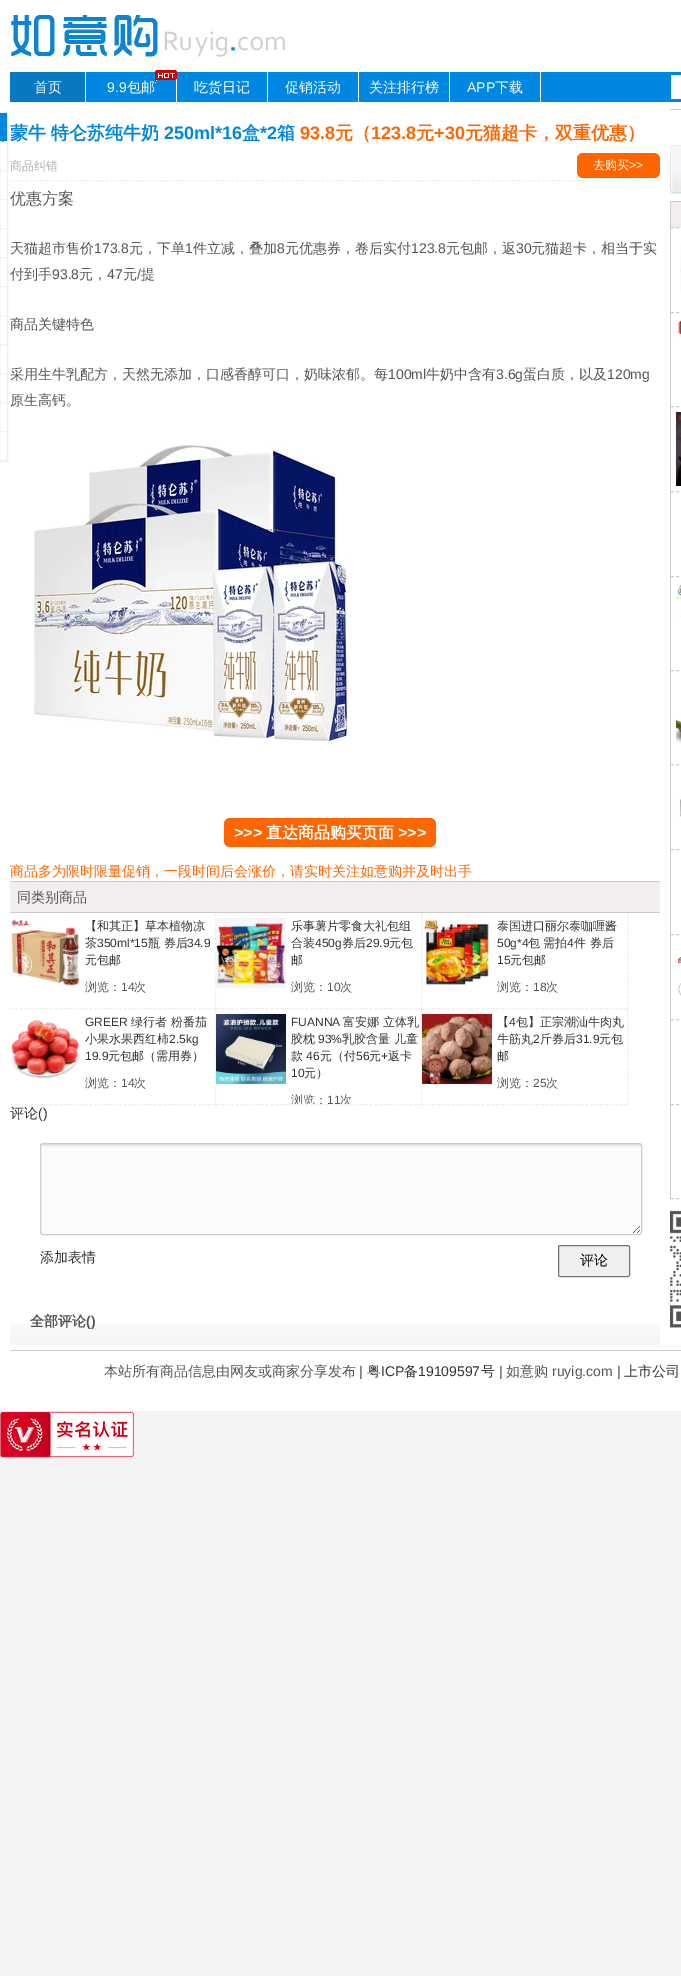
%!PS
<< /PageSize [681 1976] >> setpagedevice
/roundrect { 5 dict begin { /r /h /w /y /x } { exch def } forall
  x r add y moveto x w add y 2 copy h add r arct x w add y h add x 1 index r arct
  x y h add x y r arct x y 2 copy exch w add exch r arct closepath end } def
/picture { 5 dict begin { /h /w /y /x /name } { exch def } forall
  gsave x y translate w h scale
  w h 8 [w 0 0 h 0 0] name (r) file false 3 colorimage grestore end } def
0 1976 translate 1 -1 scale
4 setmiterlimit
0.953 setgray
0 0 681 1976 rectfill
1 setgray
0 0 681 1411 rectfill
0.933 setgray
-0.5 112.5 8 349 rectstroke
0 0.529 0.882 setrgbcolor
0 113 7 29 rectfill
0.933 setgray
[3 1.91] 0 setdash
newpath -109 141.5 moveto 7 141.5 lineto -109 170.5 moveto 7 170.5 lineto -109 199.5 moveto 7 199.5 lineto stroke
newpath -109 228.5 moveto 7 228.5 lineto -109 257.5 moveto 7 257.5 lineto -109 286.5 moveto 7 286.5 lineto stroke
newpath -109 315.5 moveto 7 315.5 lineto -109 344.5 moveto 7 344.5 lineto -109 373.5 moveto 7 373.5 lineto stroke
newpath -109 402.5 moveto 7 402.5 lineto -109 431.5 moveto 7 431.5 lineto -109 460.5 moveto 7 460.5 lineto stroke
(img1.rgb) 11 15 274 42 picture
0 0.529 0.882 setrgbcolor
86 72 595 30 rectfill
0.035 0.471 0.761 setrgbcolor
10 72 75 30 rectfill
/WenQuanYiZenHei-Medium [14 0 0 -14 0 0] selectfont
1 setgray
34 92 moveto (首页) show
176 72 1 30 rectfill
(img2.rgb) 155 70 22 13 picture
/LiberationSans-Regular [14 0 0 -14 0 0] selectfont
107 92 moveto (9.9) show
/WenQuanYiZenHei-Medium [14 0 0 -14 0 0] selectfont
127 92 moveto (包邮) show
267 72 1 30 rectfill
194 92 moveto (吃货日记) show
358 72 1 30 rectfill
285 92 moveto (促销活动) show
449 72 1 30 rectfill
369 92 moveto (关注排行榜) show
540 72 1 30 rectfill
/LiberationSans-Regular [14 0 0 -14 0 0] selectfont
467 92 moveto (APP) show
/WenQuanYiZenHei-Medium [14 0 0 -14 0 0] selectfont
495 92 moveto (下载) show
671 75 10 24 rectfill
/WenQuanYiZenHei-Bold [18 0 0 -18 0 0] selectfont
0 0.529 0.882 setrgbcolor
10 139 moveto (蒙牛 特仑苏纯牛奶) show
/LiberationSans-Bold [18 0 0 -18 0 0] selectfont
164 139 moveto (250ml*16) show
/WenQuanYiZenHei-Bold [18 0 0 -18 0 0] selectfont
242 139 moveto (盒) show
/LiberationSans-Bold [18 0 0 -18 0 0] selectfont
260 139 moveto (*2) show
/WenQuanYiZenHei-Bold [18 0 0 -18 0 0] selectfont
277 139 moveto (箱) show
/LiberationSans-Bold [18 0 0 -18 0 0] selectfont
1 0.4 0 setrgbcolor
300 139 moveto (93.8) show
/WenQuanYiZenHei-Bold [18 0 0 -18 0 0] selectfont
335 139 moveto (元（) show
/LiberationSans-Bold [18 0 0 -18 0 0] selectfont
371 139 moveto (123.8) show
/WenQuanYiZenHei-Bold [18 0 0 -18 0 0] selectfont
416 139 moveto (元) show
/LiberationSans-Bold [18 0 0 -18 0 0] selectfont
434 139 moveto (+30) show
/WenQuanYiZenHei-Bold [18 0 0 -18 0 0] selectfont
465 139 moveto (元猫超卡，双重优惠）) show
0.933 setgray
[3 2.02] 0 setdash
newpath 10 180.5 moveto 660 180.5 lineto stroke
/WenQuanYiZenHei-Medium [12 0 0 -12 0 0] selectfont
0.69 setgray
10 170 moveto (商品纠错) show
1 0.4 0 setrgbcolor
577 153 83 25 6 roundrect fill
1 setgray
593 169 moveto (去购买) show
/LiberationSans-Regular [12 0 0 -12 0 0] selectfont
629 169 moveto (>>) show
/WenQuanYiZenHei-Medium [16 0 0 -16 0 0] selectfont
0.333 setgray
10 204 moveto (优惠方案) show
/WenQuanYiZenHei-Medium [14 0 0 -14 0 0] selectfont
10 253 moveto (天猫超市售价) show
/LiberationSans-Regular [14 0 0 -14 0 0] selectfont
94 253 moveto (173.8) show
/WenQuanYiZenHei-Medium [14 0 0 -14 0 0] selectfont
129 253 moveto (元，下单) show
/LiberationSans-Regular [14 0 0 -14 0 0] selectfont
185 253 moveto (1) show
/WenQuanYiZenHei-Medium [14 0 0 -14 0 0] selectfont
193 253 moveto (件立减，叠加) show
/LiberationSans-Regular [14 0 0 -14 0 0] selectfont
277 253 moveto (8) show
/WenQuanYiZenHei-Medium [14 0 0 -14 0 0] selectfont
285 253 moveto (元优惠券，卷后实付) show
/LiberationSans-Regular [14 0 0 -14 0 0] selectfont
411 253 moveto (123.8) show
/WenQuanYiZenHei-Medium [14 0 0 -14 0 0] selectfont
446 253 moveto (元包邮，返) show
/LiberationSans-Regular [14 0 0 -14 0 0] selectfont
516 253 moveto (30) show
/WenQuanYiZenHei-Medium [14 0 0 -14 0 0] selectfont
531 253 moveto (元猫超卡，相当于实) show
10 279 moveto (付到手) show
/LiberationSans-Regular [14 0 0 -14 0 0] selectfont
52 279 moveto (93.8) show
/WenQuanYiZenHei-Medium [14 0 0 -14 0 0] selectfont
79 279 moveto (元，) show
/LiberationSans-Regular [14 0 0 -14 0 0] selectfont
107 279 moveto (47) show
/WenQuanYiZenHei-Medium [14 0 0 -14 0 0] selectfont
123 279 moveto (元) show
/LiberationSans-Regular [14 0 0 -14 0 0] selectfont
137 279 moveto (/) show
/WenQuanYiZenHei-Medium [14 0 0 -14 0 0] selectfont
141 279 moveto (提) show
10 329 moveto (商品关键特色) show
10 379 moveto (采用生牛乳配方，天然无添加，口感香醇可口，奶味浓郁。每) show
/LiberationSans-Regular [14 0 0 -14 0 0] selectfont
388 379 moveto (100ml) show
/WenQuanYiZenHei-Medium [14 0 0 -14 0 0] selectfont
426 379 moveto (牛奶中含有) show
/LiberationSans-Regular [14 0 0 -14 0 0] selectfont
496 379 moveto (3.6g) show
/WenQuanYiZenHei-Medium [14 0 0 -14 0 0] selectfont
523 379 moveto (蛋白质，以及) show
/LiberationSans-Regular [14 0 0 -14 0 0] selectfont
607 379 moveto (120mg) show
/WenQuanYiZenHei-Medium [14 0 0 -14 0 0] selectfont
10 405 moveto (原生高钙。) show
(img3.rgb) 34 445 316 296 picture
1 0.4 0 setrgbcolor
224 818 212 29 6 roundrect fill
/LiberationSans-Bold [16 0 0 -16 0 0] selectfont
1 setgray
234 838 moveto (>>>) show
/WenQuanYiZenHei-Bold [16 0 0 -16 0 0] selectfont
266 838 moveto (直达商品购买页面) show
/LiberationSans-Bold [16 0 0 -16 0 0] selectfont
398 838 moveto (>>>) show
/WenQuanYiZenHei-Medium [14 0 0 -14 0 0] selectfont
1 0.4 0 setrgbcolor
10 876 moveto (商品多为限时限量促销，一段时间后会涨价，请实时关注如意购并及时出手) show
0.953 0.933 0.933 setrgbcolor
10 882 650 30 rectfill
0.8 setgray
10 881 650 1 rectfill
10 912 650 1 rectfill
0.333 setgray
17 902 moveto (同类别商品) show
0.933 setgray
[3 1.89] 0 setdash
newpath 215.5 913 moveto 215.5 1009 lineto stroke
[3 1.95] 0 setdash
newpath 10 1008.5 moveto 216 1008.5 lineto stroke
(img4.rgb) 11 918 69 68 picture
/WenQuanYiZenHei-Medium [12 0 0 -12 0 0] selectfont
0.2 setgray
85 930 moveto (【和其正】草本植物凉) show
85 947 moveto (茶) show
/LiberationSans-Regular [12 0 0 -12 0 0] selectfont
97 947 moveto (350ml*15) show
/WenQuanYiZenHei-Medium [12 0 0 -12 0 0] selectfont
148 947 moveto (瓶 券后) show
/LiberationSans-Regular [12 0 0 -12 0 0] selectfont
187 947 moveto (34.9) show
/WenQuanYiZenHei-Medium [12 0 0 -12 0 0] selectfont
85 964 moveto (元包邮) show
0.333 setgray
85 991 moveto (浏览：) show
/LiberationSans-Regular [12 0 0 -12 0 0] selectfont
121 991 moveto (14) show
/WenQuanYiZenHei-Medium [12 0 0 -12 0 0] selectfont
134 991 moveto (次) show
0.933 setgray
[3 1.89] 0 setdash
newpath 421.5 913 moveto 421.5 1009 lineto stroke
[3 1.95] 0 setdash
newpath 216 1008.5 moveto 422 1008.5 lineto stroke
(img5.rgb) 216 918 70 70 picture
0.2 setgray
291 930 moveto (乐事薯片零食大礼包组) show
291 947 moveto (合装) show
/LiberationSans-Regular [12 0 0 -12 0 0] selectfont
315 947 moveto (450g) show
/WenQuanYiZenHei-Medium [12 0 0 -12 0 0] selectfont
342 947 moveto (券后) show
/LiberationSans-Regular [12 0 0 -12 0 0] selectfont
366 947 moveto (29.9) show
/WenQuanYiZenHei-Medium [12 0 0 -12 0 0] selectfont
389 947 moveto (元包) show
291 964 moveto (邮) show
0.333 setgray
291 991 moveto (浏览：) show
/LiberationSans-Regular [12 0 0 -12 0 0] selectfont
327 991 moveto (10) show
/WenQuanYiZenHei-Medium [12 0 0 -12 0 0] selectfont
340 991 moveto (次) show
0.933 setgray
[3 1.89] 0 setdash
newpath 627.5 913 moveto 627.5 1009 lineto stroke
[3 1.95] 0 setdash
newpath 422 1008.5 moveto 628 1008.5 lineto stroke
(img6.rgb) 424 918 65 67 picture
0.2 setgray
497 930 moveto (泰国进口丽尔泰咖喱酱) show
/LiberationSans-Regular [12 0 0 -12 0 0] selectfont
497 947 moveto (50g*4) show
/WenQuanYiZenHei-Medium [12 0 0 -12 0 0] selectfont
528 947 moveto (包) show
543 947 moveto (需拍) show
/LiberationSans-Regular [12 0 0 -12 0 0] selectfont
567 947 moveto (4) show
/WenQuanYiZenHei-Medium [12 0 0 -12 0 0] selectfont
574 947 moveto (件 券后) show
/LiberationSans-Regular [12 0 0 -12 0 0] selectfont
497 964 moveto (15) show
/WenQuanYiZenHei-Medium [12 0 0 -12 0 0] selectfont
510 964 moveto (元包邮) show
0.333 setgray
497 991 moveto (浏览：) show
/LiberationSans-Regular [12 0 0 -12 0 0] selectfont
533 991 moveto (18) show
/WenQuanYiZenHei-Medium [12 0 0 -12 0 0] selectfont
546 991 moveto (次) show
0.933 setgray
[3 1.89] 0 setdash
newpath 215.5 1009 moveto 215.5 1105 lineto stroke
[3 1.95] 0 setdash
newpath 10 1104.5 moveto 216 1104.5 lineto stroke
(img7.rgb) 11 1019 69 60 picture
/LiberationSans-Regular [12 0 0 -12 0 0] selectfont
0.2 setgray
85 1026 moveto (GREER) show
/WenQuanYiZenHei-Medium [12 0 0 -12 0 0] selectfont
131 1026 moveto (绿行者 粉番茄) show
85 1043 moveto (小果水果西红柿) show
/LiberationSans-Regular [12 0 0 -12 0 0] selectfont
169 1043 moveto (2.5kg) show
85 1060 moveto (19.9) show
/WenQuanYiZenHei-Medium [12 0 0 -12 0 0] selectfont
108 1060 moveto (元包邮（需用券）) show
0.333 setgray
85 1087 moveto (浏览：) show
/LiberationSans-Regular [12 0 0 -12 0 0] selectfont
121 1087 moveto (14) show
/WenQuanYiZenHei-Medium [12 0 0 -12 0 0] selectfont
134 1087 moveto (次) show
0.933 setgray
[3 1.89] 0 setdash
newpath 421.5 1009 moveto 421.5 1105 lineto stroke
[3 1.95] 0 setdash
newpath 216 1104.5 moveto 422 1104.5 lineto stroke
(img8.rgb) 216 1014 70 70 picture
/LiberationSans-Regular [12 0 0 -12 0 0] selectfont
0.2 setgray
291 1026 moveto (FUANNA) show
/WenQuanYiZenHei-Medium [12 0 0 -12 0 0] selectfont
343 1026 moveto (富安娜 立体乳) show
291 1043 moveto (胶枕) show
/LiberationSans-Regular [12 0 0 -12 0 0] selectfont
318 1043 moveto (93%) show
/WenQuanYiZenHei-Medium [12 0 0 -12 0 0] selectfont
342 1043 moveto (乳胶含量 儿童) show
291 1060 moveto (款) show
/LiberationSans-Regular [12 0 0 -12 0 0] selectfont
306 1060 moveto (46) show
/WenQuanYiZenHei-Medium [12 0 0 -12 0 0] selectfont
320 1060 moveto (元（付) show
/LiberationSans-Regular [12 0 0 -12 0 0] selectfont
356 1060 moveto (56) show
/WenQuanYiZenHei-Medium [12 0 0 -12 0 0] selectfont
369 1060 moveto (元) show
/LiberationSans-Regular [12 0 0 -12 0 0] selectfont
381 1060 moveto (+) show
/WenQuanYiZenHei-Medium [12 0 0 -12 0 0] selectfont
388 1060 moveto (返卡) show
/LiberationSans-Regular [12 0 0 -12 0 0] selectfont
291 1077 moveto (10) show
/WenQuanYiZenHei-Medium [12 0 0 -12 0 0] selectfont
304 1077 moveto (元）) show
gsave
216 1009 205 95 rectclip
0.333 setgray
291 1104 moveto (浏览：) show
grestore
/LiberationSans-Regular [12 0 0 -12 0 0] selectfont
0.333 setgray
327 1104 moveto (11) show
gsave
216 1009 205 95 rectclip
/WenQuanYiZenHei-Medium [12 0 0 -12 0 0] selectfont
340 1104 moveto (次) show
grestore
0.933 setgray
[3 1.89] 0 setdash
newpath 627.5 1009 moveto 627.5 1105 lineto stroke
[3 1.95] 0 setdash
newpath 422 1104.5 moveto 628 1104.5 lineto stroke
(img9.rgb) 422 1014 70 70 picture
/WenQuanYiZenHei-Medium [12 0 0 -12 0 0] selectfont
0.2 setgray
497 1026 moveto (【) show
/LiberationSans-Regular [12 0 0 -12 0 0] selectfont
509 1026 moveto (4) show
/WenQuanYiZenHei-Medium [12 0 0 -12 0 0] selectfont
516 1026 moveto (包】正宗潮汕牛肉丸) show
497 1043 moveto (牛筋丸) show
/LiberationSans-Regular [12 0 0 -12 0 0] selectfont
533 1043 moveto (2) show
/WenQuanYiZenHei-Medium [12 0 0 -12 0 0] selectfont
540 1043 moveto (斤券后) show
/LiberationSans-Regular [12 0 0 -12 0 0] selectfont
576 1043 moveto (31.9) show
/WenQuanYiZenHei-Medium [12 0 0 -12 0 0] selectfont
599 1043 moveto (元包) show
497 1060 moveto (邮) show
0.333 setgray
497 1087 moveto (浏览：) show
/LiberationSans-Regular [12 0 0 -12 0 0] selectfont
533 1087 moveto (25) show
/WenQuanYiZenHei-Medium [12 0 0 -12 0 0] selectfont
546 1087 moveto (次) show
/WenQuanYiZenHei-Medium [14 0 0 -14 0 0] selectfont
0.2 setgray
10 1118 moveto (评论) show
/LiberationSans-Regular [14 0 0 -14 0 0] selectfont
38 1118 moveto (\(\)) show
0.984 setgray
40 1143 602 92 3 roundrect fill
(img10.rgb) 40 1144 602 89 picture
0.8 setgray
[] 0 setdash
40.5 1143.5 601 91 2.5 roundrect stroke
/WenQuanYiZenHei-Medium [14 0 0 -14 0 0] selectfont
0.2 setgray
40 1262 moveto (添加表情) show
0.937 setgray
558.5 1245.5 71 31 1.5 roundrect gsave fill grestore
0.463 setgray
stroke
0 setgray
580 1265 moveto (评论) show
(img11.rgb) 10 1323 650 22 picture
/WenQuanYiZenHei-Bold [14 0 0 -14 0 0] selectfont
0.333 setgray
30 1326 moveto (全部评论) show
/LiberationSans-Bold [14 0 0 -14 0 0] selectfont
86 1326 moveto (\(\)) show
0.8 setgray
670 109 11 1 rectfill
(img12.rgb) 670 145 11 49 picture
670 201 11 1 rectfill
670 201 1 998 rectfill
0.953 0.933 0.933 setrgbcolor
671 202 10 26 rectfill
0.8 setgray
[3 2.03] 0 setdash
newpath 671 227.5 moveto 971 227.5 lineto stroke
newpath 671 312.5 moveto 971 312.5 lineto stroke
(img13.rgb) 680 247 1 48 picture
newpath 671 406.5 moveto 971 406.5 lineto stroke
(img14.rgb) 678 320 3 19 picture
newpath 671 491.5 moveto 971 491.5 lineto stroke
(img15.rgb) 676 412 5 74 picture
newpath 671 576.5 moveto 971 576.5 lineto stroke
newpath 671 670.5 moveto 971 670.5 lineto stroke
(img16.rgb) 676 584 5 34 picture
newpath 671 764.5 moveto 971 764.5 lineto stroke
(img17.rgb) 676 719 5 25 picture
newpath 671 849.5 moveto 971 849.5 lineto stroke
(img18.rgb) 679 799 2 18 picture
newpath 671 934.5 moveto 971 934.5 lineto stroke
newpath 671 1019.5 moveto 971 1019.5 lineto stroke
(img19.rgb) 678 957 3 39 picture
newpath 671 1104.5 moveto 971 1104.5 lineto stroke
newpath 671 1198.5 moveto 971 1198.5 lineto stroke
(img20.rgb) 670 1210 11 118 picture
10 1350 671 1 rectfill
/WenQuanYiZenHei-Medium [14 0 0 -14 0 0] selectfont
0.333 setgray
104 1376 moveto (本站所有商品信息由网友或商家分享发布) show
/LiberationSans-Regular [14 0 0 -14 0 0] selectfont
359 1376 moveto (|) show
/WenQuanYiZenHei-Medium [14 0 0 -14 0 0] selectfont
0.2 setgray
367 1376 moveto (粤) show
/LiberationSans-Regular [14 0 0 -14 0 0] selectfont
381 1376 moveto (ICP) show
/WenQuanYiZenHei-Medium [14 0 0 -14 0 0] selectfont
404 1376 moveto (备) show
/LiberationSans-Regular [14 0 0 -14 0 0] selectfont
418 1376 moveto (19109597) show
/WenQuanYiZenHei-Medium [14 0 0 -14 0 0] selectfont
481 1376 moveto (号) show
/LiberationSans-Regular [14 0 0 -14 0 0] selectfont
0.333 setgray
499 1376 moveto (|) show
/WenQuanYiZenHei-Medium [14 0 0 -14 0 0] selectfont
506 1376 moveto (如意购) show
/LiberationSans-Regular [14 0 0 -14 0 0] selectfont
552 1376 moveto (ruyig.com |) show
/WenQuanYiZenHei-Medium [14 0 0 -14 0 0] selectfont
0.2 setgray
624 1376 moveto (上市公司) show
(img21.rgb) 0 1411 134 47 picture
showpage
